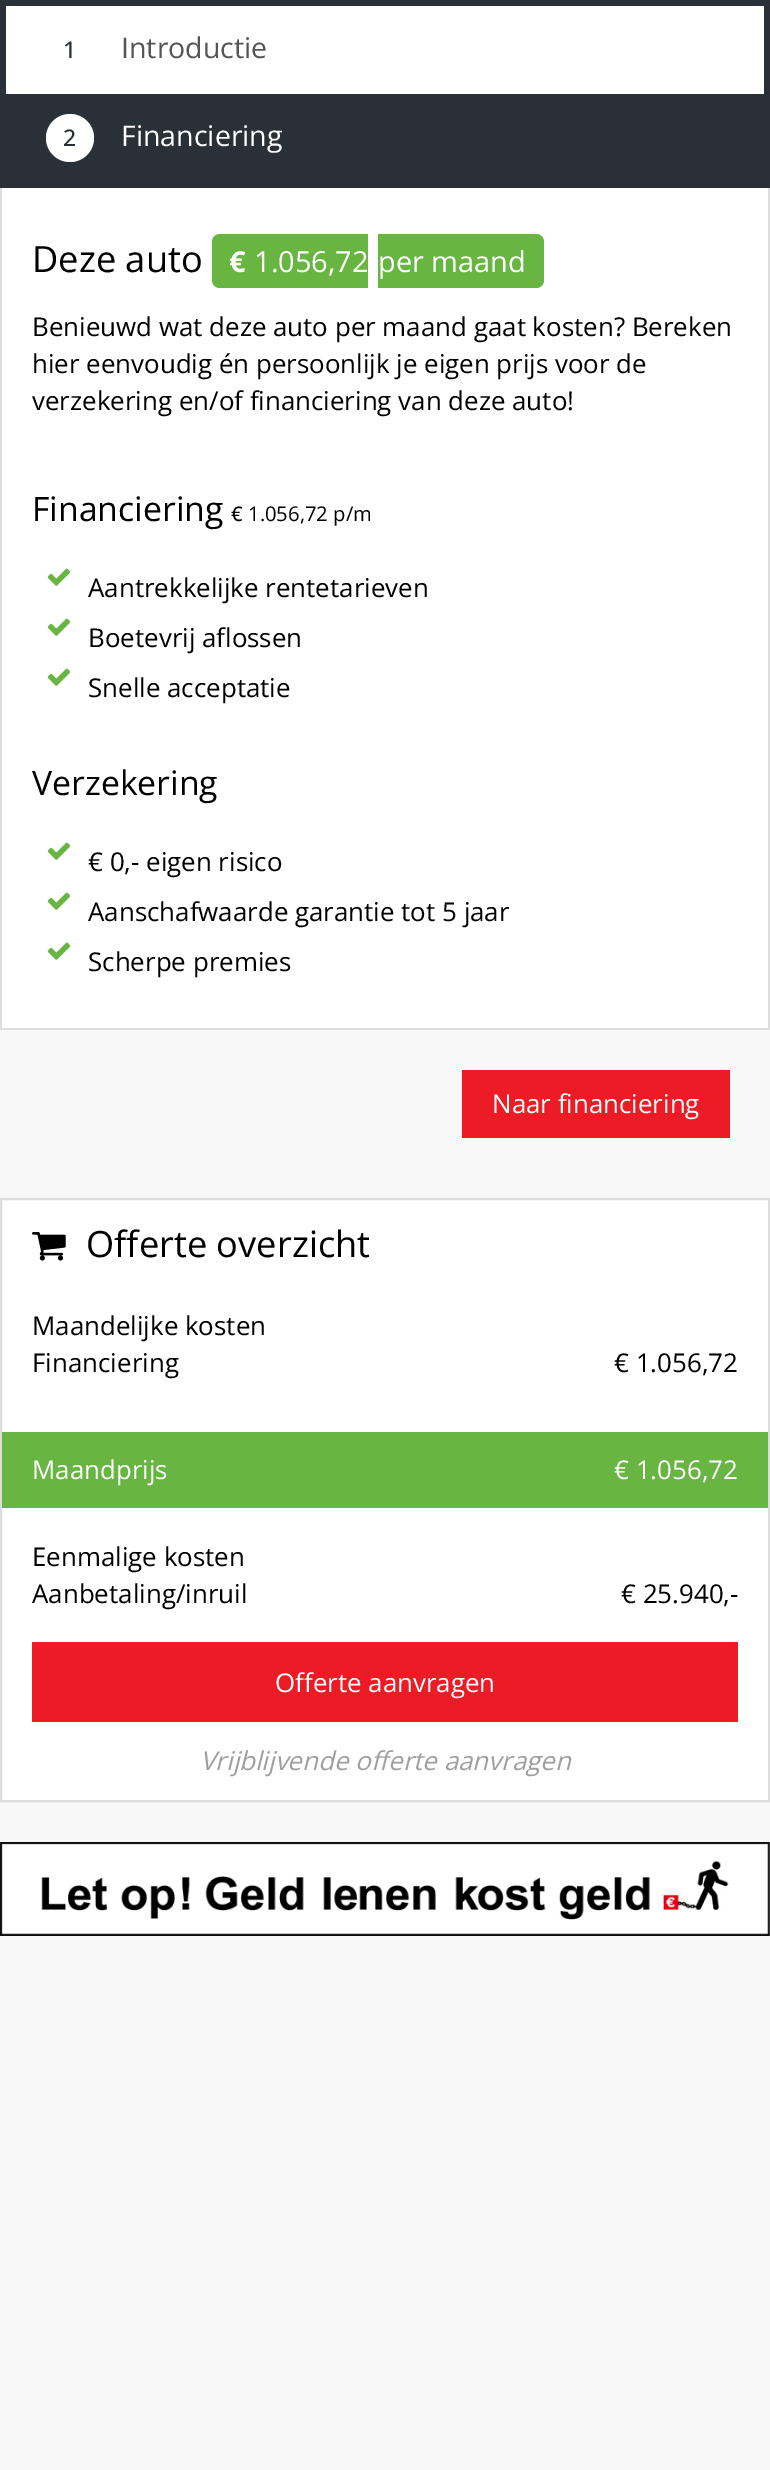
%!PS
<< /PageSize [770 2470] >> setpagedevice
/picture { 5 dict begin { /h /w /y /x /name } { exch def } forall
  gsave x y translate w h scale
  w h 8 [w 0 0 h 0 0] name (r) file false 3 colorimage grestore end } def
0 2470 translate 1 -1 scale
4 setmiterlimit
0.973 setgray
0 0 770 2470 rectfill
0.161 0.188 0.22 setrgbcolor
0 0 770 188 rectfill
1 setgray
6 6 758 88 rectfill
/OpenSans-Medium [23 0 0 -23 0 0] selectfont
0.161 0.188 0.22 setrgbcolor
63 58 moveto (1) show
/OpenSans-Regular [28.5 0 0 -28.5 0 0] selectfont
0.333 setgray
121 58 moveto (Introductie) show
1 setgray
newpath 70 138 24 0 360 arc closepath fill
/OpenSans-Medium [23 0 0 -23 0 0] selectfont
0.161 0.188 0.22 setrgbcolor
63 146 moveto (2) show
/OpenSans-Regular [28.5 0 0 -28.5 0 0] selectfont
1 setgray
121 146 moveto (Financiering) show
2 188 766 840 rectfill
0.867 setgray
768 188 2 842 rectfill
0 1028 770 2 rectfill
0 188 2 842 rectfill
/OpenSans-Regular [36.25 0 0 -36.25 0 0] selectfont
0 setgray
32 272 moveto (Deze auto) show
0.408 0.71 0.259 setrgbcolor
newpath 220 234 moveto 368 234 lineto 368 288 lineto 220 288 lineto 215.5 288 212 284.5 212 280 curveto 212 242 lineto 212 237.5 215.5 234 220 234 curveto closepath fill
/OpenSans-Bold [29 0 0 -29 0 0] selectfont
1 setgray
229 272 moveto (€) show
/OpenSans-Regular [29 0 0 -29 0 0] selectfont
254 272 moveto (1.056,72) show
0.408 0.71 0.259 setrgbcolor
newpath 378 234 moveto 536 234 lineto 540.5 234 544 237.5 544 242 curveto 544 280 lineto 544 284.5 540.5 288 536 288 curveto 378 288 lineto closepath fill
1 setgray
378 272 moveto (per maand) show
/OpenSans-Regular [25.9 0 0 -25.9 0 0] selectfont
0 setgray
32 336 moveto (Benieuwd wat deze auto per maand gaat kosten? Bereken) show
32 373 moveto (hier eenvoudig én persoonlijk je eigen prijs voor de) show
32 410 moveto (verzekering en/of financiering van deze auto!) show
/OpenSans-Regular [33.75 0 0 -33.75 0 0] selectfont
32 521 moveto (Financiering) show
/OpenSans-Medium [20.25 0 0 -20.25 0 0] selectfont
231 521 moveto (€) show
/OpenSans-Regular [20.25 0 0 -20.25 0 0] selectfont
248 521 moveto (1.056,72 p/m) show
(img1.rgb) 47 568 24 18 picture
/OpenSans-Regular [25.9 0 0 -25.9 0 0] selectfont
88 597 moveto (Aantrekkelijke rentetarieven) show
(img1.rgb) 47 618 24 18 picture
88 647 moveto (Boetevrij aflossen) show
(img1.rgb) 47 668 24 18 picture
88 697 moveto (Snelle acceptatie) show
/OpenSans-Regular [33.75 0 0 -33.75 0 0] selectfont
32 795 moveto (Verzekering) show
(img1.rgb) 47 842 24 18 picture
/OpenSans-Regular [25.9 0 0 -25.9 0 0] selectfont
88 871 moveto (€ 0,- eigen risico) show
(img1.rgb) 47 892 24 18 picture
88 921 moveto (Aanschafwaarde garantie tot 5 jaar) show
(img1.rgb) 47 942 24 18 picture
88 971 moveto (Scherpe premies) show
0.929 0.106 0.145 setrgbcolor
462 1070 268 68 rectfill
1 setgray
492 1113 moveto (Naar financiering) show
newpath 1 1199 moveto 769 1199 lineto 769 1801 lineto 1 1801 lineto closepath gsave fill grestore
0.867 setgray
2 setlinewidth
stroke
(img2.rgb) 32 1232 34 29 picture
/OpenSans-Regular [36.25 0 0 -36.25 0 0] selectfont
0 setgray
86 1257 moveto (Offerte overzicht) show
/OpenSans-Regular [25.9 0 0 -25.9 0 0] selectfont
32 1335 moveto (Maandelijke kosten) show
32 1372 moveto (Financiering) show
614 1372 moveto (€ 1.056,72) show
0.408 0.71 0.259 setrgbcolor
2 1432 766 76 rectfill
1 setgray
32 1479 moveto (Maandprijs) show
614 1479 moveto (€ 1.056,72) show
0 setgray
32 1566 moveto (Eenmalige kosten) show
32 1603 moveto (Aanbetaling/inruil) show
621 1603 moveto (€ 25.940,-) show
0.929 0.106 0.145 setrgbcolor
32 1642 706 80 rectfill
1 setgray
275 1692 moveto (Offerte aanvragen) show
/OpenSans-Italic [25.9 0 0 -25.9 0 0] selectfont
0.627 0.624 0.624 setrgbcolor
200 1770 moveto (Vrijblijvende offerte aanvragen) show
(img3.rgb) 0 1842 770 94 picture
showpage
